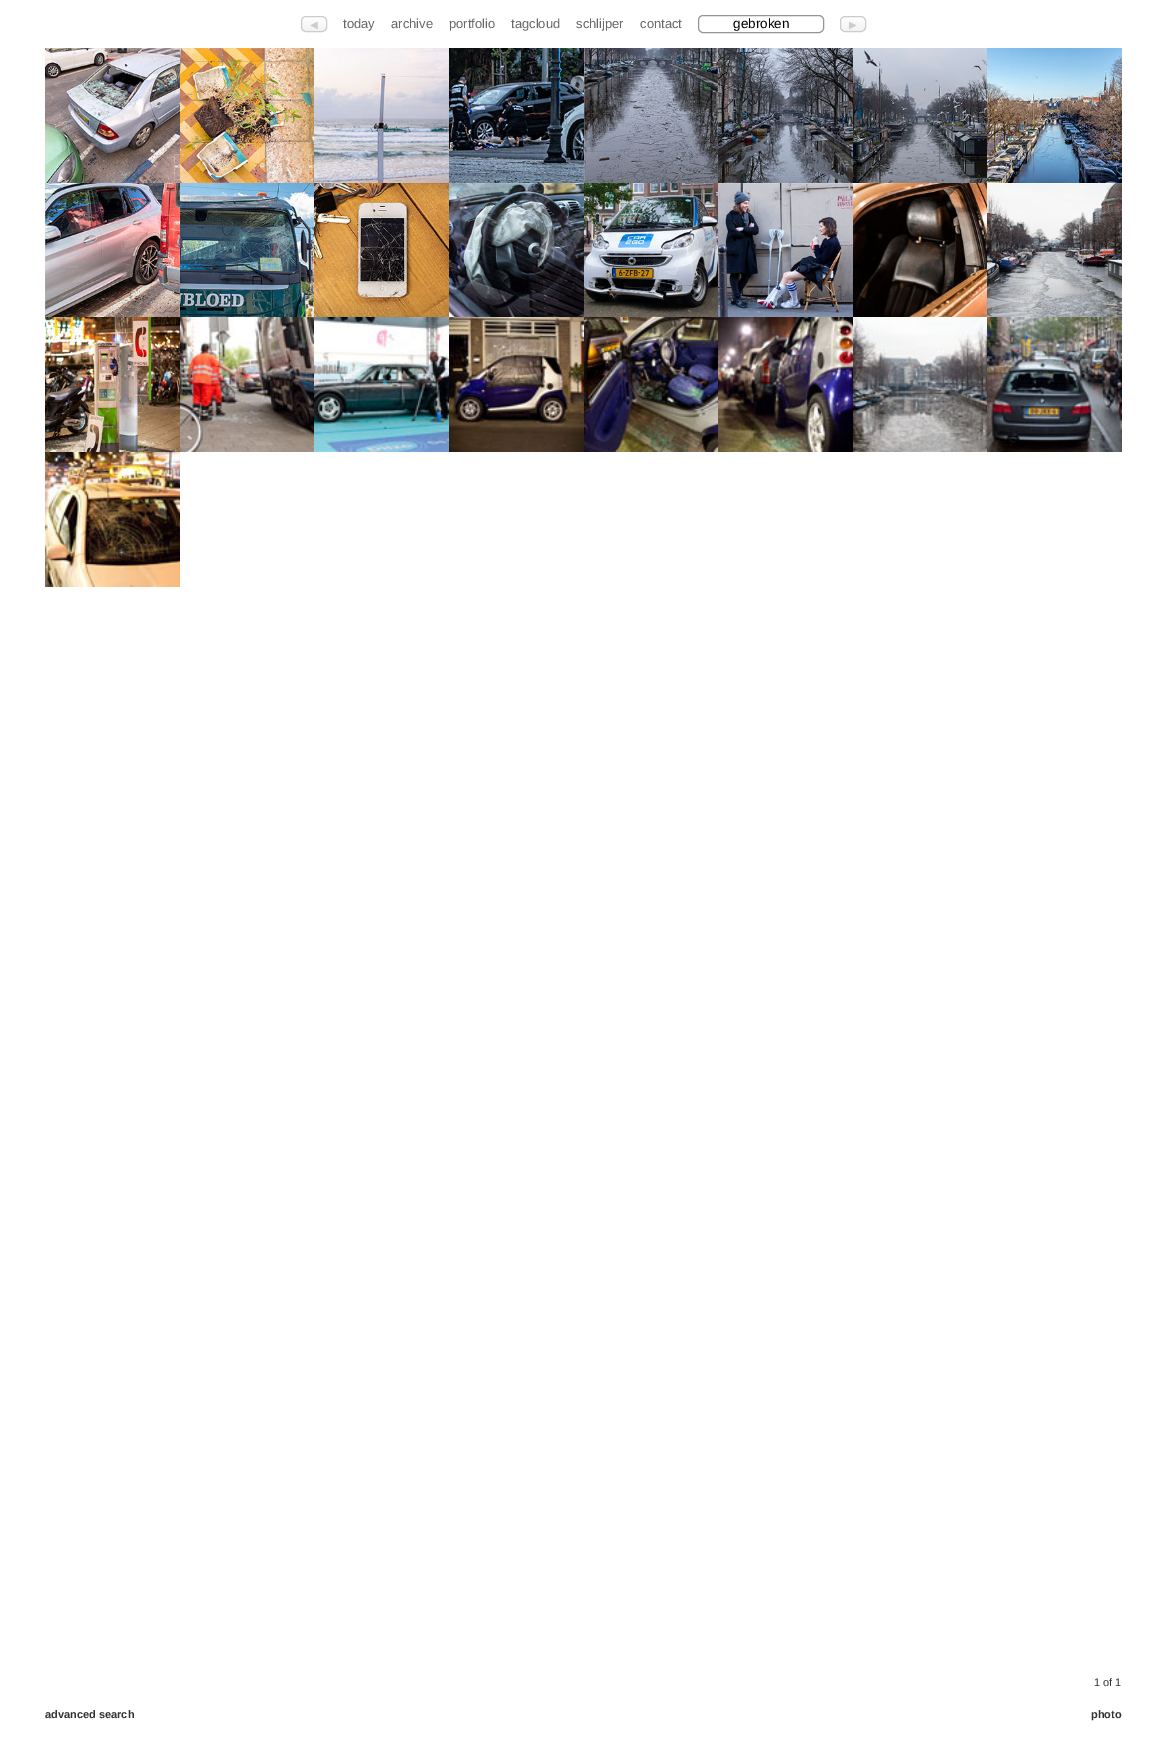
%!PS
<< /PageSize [1167 1737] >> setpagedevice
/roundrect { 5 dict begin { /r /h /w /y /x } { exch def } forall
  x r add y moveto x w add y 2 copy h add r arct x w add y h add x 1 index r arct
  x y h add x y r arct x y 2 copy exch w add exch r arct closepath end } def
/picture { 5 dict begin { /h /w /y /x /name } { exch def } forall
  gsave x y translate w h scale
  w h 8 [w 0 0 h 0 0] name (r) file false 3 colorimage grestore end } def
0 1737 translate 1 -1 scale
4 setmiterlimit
1 setgray
0 0 1167 1737 rectfill
gsave
301 16 26 16 5 roundrect clip newpath
gsave newpath 301 17 moveto 327 17 lineto 327 31 lineto 301 31 lineto closepath clip newpath
<< /ShadingType 2 /ColorSpace /DeviceRGB /Coords [314 17 314 31] /Extend [true true] /Function << /FunctionType 2 /Domain [0 1] /C0 [1 1 1] /C1 [0.949 0.949 0.949] /N 1 >> >> shfill grestore
grestore
0.8 setgray
301.5 16.5 25 15 4.5 roundrect stroke
/DejaVuSans-Regular [10 0 0 -10 0 0] selectfont
310 28 moveto (◀) show
/LiberationSans-Regular [13 0 0 -13 0 0] selectfont
0.4 setgray
343 28 moveto (today) show
391 28 moveto (archive) show
449 28 moveto (portfolio) show
511 28 moveto (tagcloud) show
576 28 moveto (schlijper) show
640 28 moveto (contact) show
0.584 setgray
698.5 15.5 125 17 4.5 roundrect stroke
/LiberationSans-Regular [13.5 0 0 -13.5 0 0] selectfont
0 setgray
733 28 moveto (gebroken) show
gsave
840 16 26 16 5 roundrect clip newpath
gsave newpath 840 17 moveto 866 17 lineto 866 31 lineto 840 31 lineto closepath clip newpath
<< /ShadingType 2 /ColorSpace /DeviceRGB /Coords [853 17 853 31] /Extend [true true] /Function << /FunctionType 2 /Domain [0 1] /C0 [1 1 1] /C1 [0.949 0.949 0.949] /N 1 >> >> shfill grestore
grestore
0.8 setgray
840.5 16.5 25 15 4.5 roundrect stroke
/DejaVuSans-Regular [10 0 0 -10 0 0] selectfont
849 28 moveto (▶) show
(img1.rgb) 45 48 135 135 picture
(img2.rgb) 180 48 134 135 picture
(img3.rgb) 314 48 135 135 picture
(img4.rgb) 449 48 135 135 picture
(img5.rgb) 584 48 134 135 picture
(img6.rgb) 718 48 135 135 picture
(img7.rgb) 853 48 134 135 picture
(img8.rgb) 987 48 135 135 picture
(img9.rgb) 45 183 135 134 picture
(img10.rgb) 180 183 134 134 picture
(img11.rgb) 314 183 135 134 picture
(img12.rgb) 449 183 135 134 picture
(img13.rgb) 584 183 134 134 picture
(img14.rgb) 718 183 135 134 picture
(img15.rgb) 853 183 134 134 picture
(img16.rgb) 987 183 135 134 picture
(img17.rgb) 45 317 135 135 picture
(img18.rgb) 180 317 134 135 picture
(img19.rgb) 314 317 135 135 picture
(img20.rgb) 449 317 135 135 picture
(img21.rgb) 584 317 134 135 picture
(img22.rgb) 718 317 135 135 picture
(img23.rgb) 853 317 134 135 picture
(img24.rgb) 987 317 135 135 picture
(img25.rgb) 45 452 135 135 picture
/LiberationSans-Bold [11 0 0 -11 0 0] selectfont
0.2 setgray
45 1718 moveto (advanced search) show
/LiberationSans-Regular [11 0 0 -11 0 0] selectfont
1094 1686 moveto (1 of 1) show
/LiberationSans-Bold [11 0 0 -11 0 0] selectfont
1091 1718 moveto (photo) show
showpage
